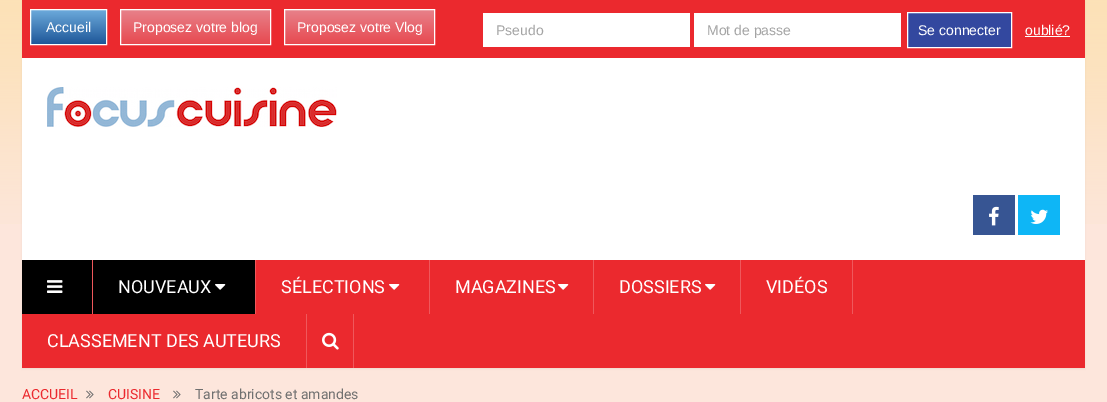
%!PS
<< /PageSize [1107 402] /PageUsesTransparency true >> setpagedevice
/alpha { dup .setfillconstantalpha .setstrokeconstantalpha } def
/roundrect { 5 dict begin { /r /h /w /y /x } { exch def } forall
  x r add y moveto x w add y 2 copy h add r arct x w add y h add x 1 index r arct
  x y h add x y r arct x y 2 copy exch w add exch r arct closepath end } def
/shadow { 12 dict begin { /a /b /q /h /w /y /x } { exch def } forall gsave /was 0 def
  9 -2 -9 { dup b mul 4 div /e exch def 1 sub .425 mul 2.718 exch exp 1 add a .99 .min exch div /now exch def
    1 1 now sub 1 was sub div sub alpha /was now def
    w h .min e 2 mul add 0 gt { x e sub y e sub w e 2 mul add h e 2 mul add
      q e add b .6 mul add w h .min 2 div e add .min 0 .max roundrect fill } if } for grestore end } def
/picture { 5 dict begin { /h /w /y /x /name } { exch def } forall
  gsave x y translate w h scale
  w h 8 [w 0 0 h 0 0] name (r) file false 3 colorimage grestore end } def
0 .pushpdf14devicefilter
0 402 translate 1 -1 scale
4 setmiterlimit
0.992 0.902 0.863 setrgbcolor
0 0 1107 402 rectfill
(img1.rgb) 0 0 1107 224 picture
0 setgray
22 1 1063 368 0 1 0.05 shadow
1 setgray
22 58 1063 202 rectfill
0.922 0.161 0.18 setrgbcolor
22 0 1063 58 rectfill
gsave newpath 31 10 moveto 106 10 lineto 106 44 lineto 31 44 lineto closepath clip newpath
<< /ShadingType 2 /ColorSpace /DeviceRGB /Coords [69 10 69 44] /Extend [true true] /Function << /FunctionType 2 /Domain [0 1] /C0 [0.424 0.667 0.859] /C1 [0.118 0.341 0.6] /N 1 >> >> shfill grestore
1 setgray
30.5 9.5 76 35 rectstroke
/LiberationSans-Regular [14 0 0 -14 0 0] selectfont
46 32 moveto (Accueil) show
gsave newpath 121 10 moveto 270 10 lineto 270 44 lineto 121 44 lineto closepath clip newpath
<< /ShadingType 2 /ColorSpace /DeviceRGB /Coords [196 10 196 44] /Extend [true true] /Function << /FunctionType 2 /Domain [0 1] /C0 [0.91 0.506 0.541] /C1 [0.906 0.286 0.314] /N 1 >> >> shfill grestore
120.5 9.5 150 35 rectstroke
133 32 moveto (Proposez votre blog) show
gsave newpath 285 10 moveto 434 10 lineto 434 44 lineto 285 44 lineto closepath clip newpath
<< /ShadingType 2 /ColorSpace /DeviceRGB /Coords [360 10 360 44] /Extend [true true] /Function << /FunctionType 2 /Domain [0 1] /C0 [0.91 0.506 0.541] /C1 [0.906 0.286 0.314] /N 1 >> >> shfill grestore
284.5 9.5 150 35 rectstroke
297 32 moveto (Proposez votre Vlog) show
483 13 207 34 rectfill
0.643 setgray
496 35 moveto (Pseudo) show
1 setgray
694 13 207 34 rectfill
0.643 setgray
707 35 moveto (Mot de passe) show
0.2 0.282 0.624 setrgbcolor
newpath 907.5 12.5 moveto 1011.5 12.5 lineto 1011.5 47.5 lineto 907.5 47.5 lineto closepath gsave fill grestore
1 setgray
stroke
918 35 moveto (Se connecter) show
1025 35 moveto (oublié?) show
1025 36 45 1 rectfill
(img2.rgb) 47 87 290 40 picture
0.216 0.333 0.576 setrgbcolor
973 195 42 40 rectfill
(img3.rgb) 989 206 10 20 picture
0.055 0.714 0.965 setrgbcolor
1018 195 42 40 rectfill
(img4.rgb) 1030 209 18 15 picture
0.922 0.161 0.18 setrgbcolor
22 260 1063 108 rectfill
0.937 0.345 0.361 setrgbcolor
92 260 1 54 rectfill
0 setgray
22 260 70 54 rectfill
(img5.rgb) 47 280 16 13 picture
0.937 0.345 0.361 setrgbcolor
255 260 1 54 rectfill
0 setgray
93 260 162 54 rectfill
/Roboto-Regular [18 0 0 -18 0 0] selectfont
1 setgray
118 293 moveto (NOUVEAUX) show
(img6.rgb) 215 284 11 6 picture
0.937 0.345 0.361 setrgbcolor
429 260 1 54 rectfill
1 setgray
281 293 moveto (SÉLECTIONS) show
(img7.rgb) 389 284 11 6 picture
0.937 0.345 0.361 setrgbcolor
593 260 1 54 rectfill
1 setgray
455 293 moveto (MAGAZINES) show
(img7.rgb) 558 284 11 6 picture
0.937 0.345 0.361 setrgbcolor
740 260 1 54 rectfill
1 setgray
619 293 moveto (DOSSIERS) show
(img7.rgb) 705 284 11 6 picture
0.937 0.345 0.361 setrgbcolor
852 260 1 54 rectfill
1 setgray
766 293 moveto (VIDÉOS) show
0.937 0.345 0.361 setrgbcolor
306 314 1 54 rectfill
1 setgray
47 347 moveto (CLASSEMENT DES AUTEURS) show
0.937 0.345 0.361 setrgbcolor
353 314 1 54 rectfill
(img8.rgb) 322 332 17 18 picture
/Roboto-Regular [14 0 0 -14 0 0] selectfont
0.922 0.161 0.18 setrgbcolor
22 399 moveto (ACCUEIL) show
(img9.rgb) 86 390 8 9 picture
108 399 moveto (CUISINE) show
(img9.rgb) 173 390 8 9 picture
0.439 setgray
195 399 moveto (Tarte abricots et amandes) show
.poppdf14devicefilter showpage
